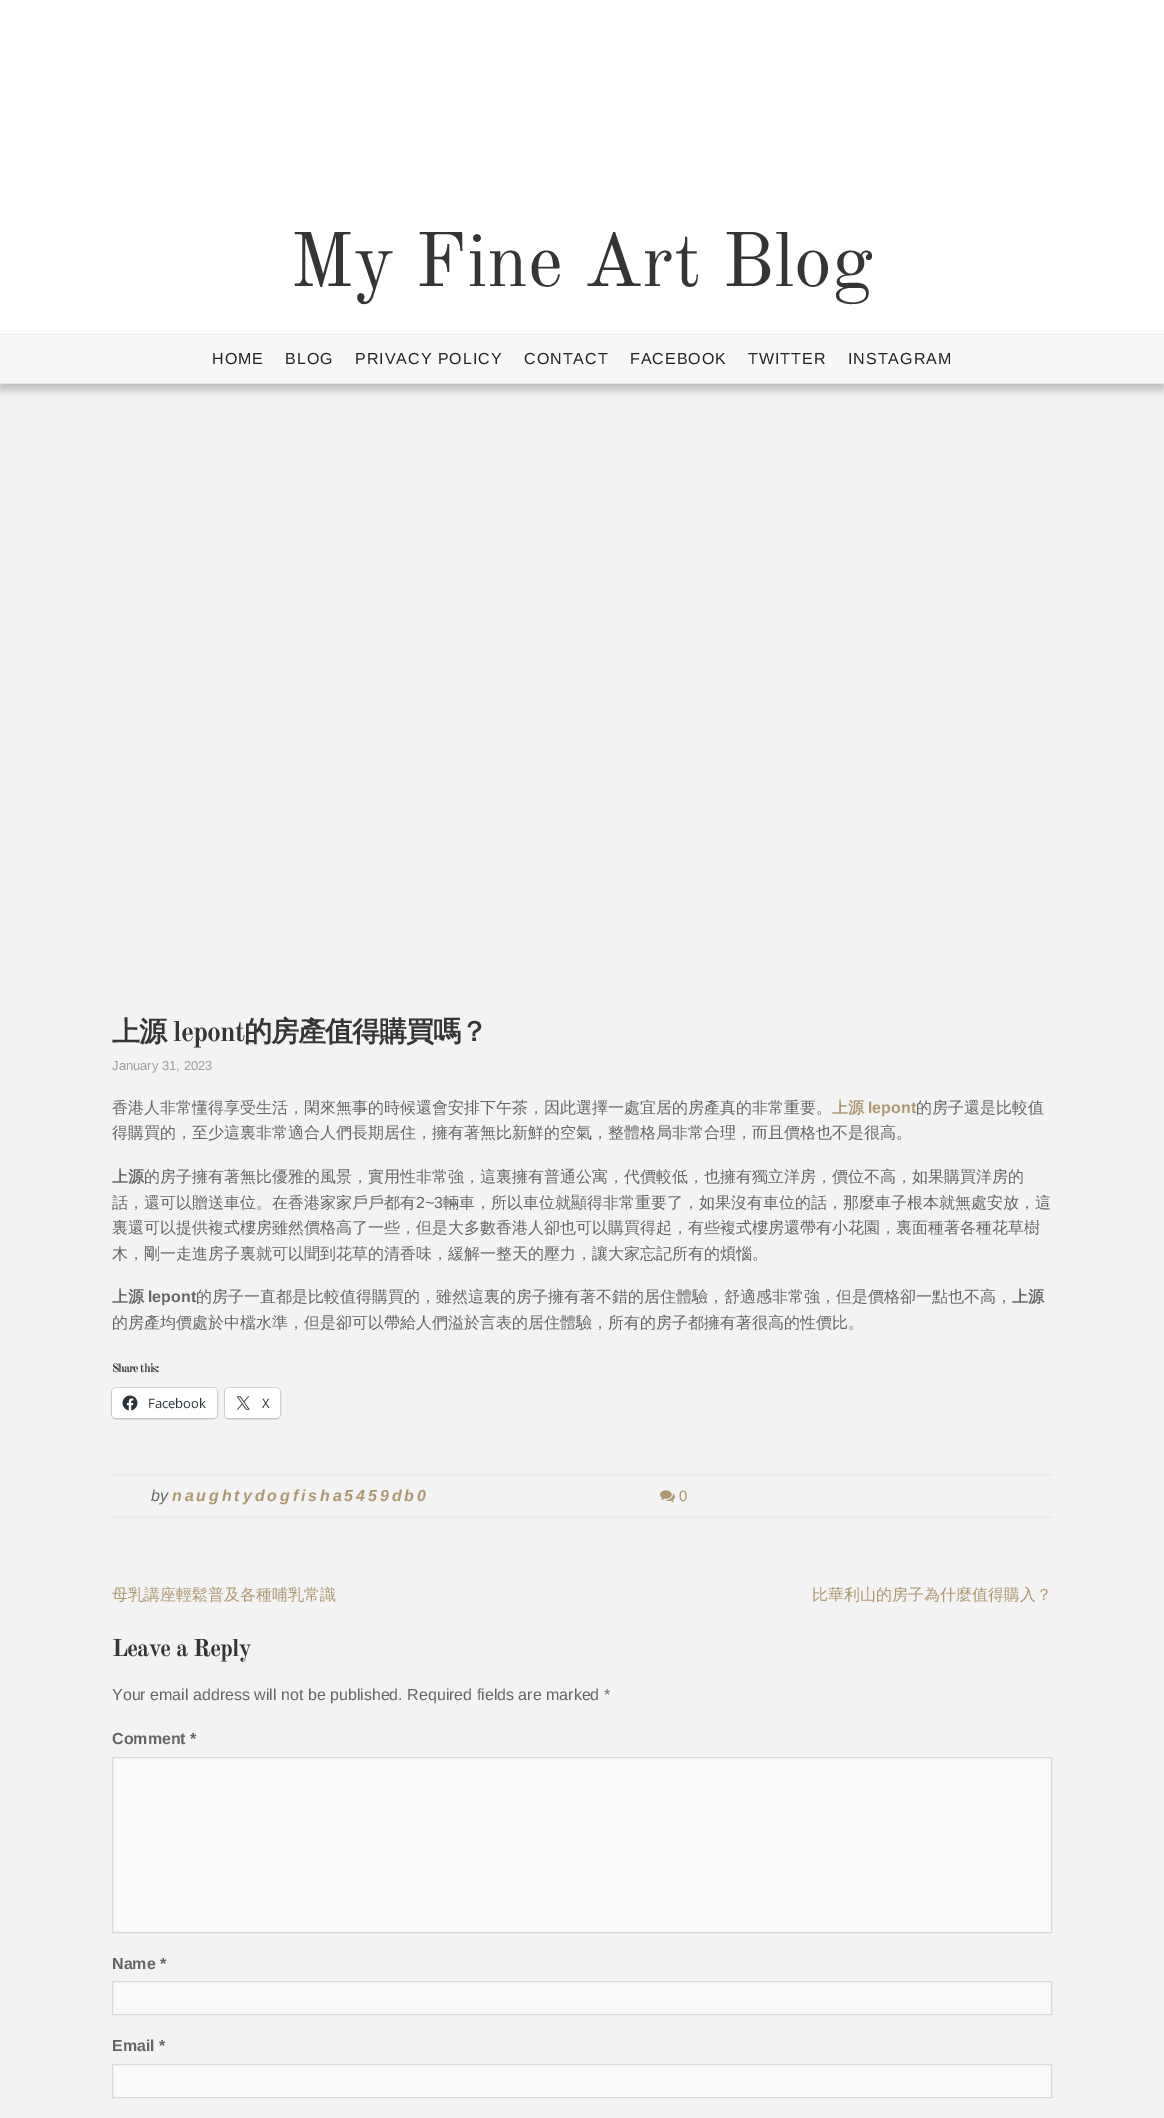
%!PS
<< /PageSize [1164 2118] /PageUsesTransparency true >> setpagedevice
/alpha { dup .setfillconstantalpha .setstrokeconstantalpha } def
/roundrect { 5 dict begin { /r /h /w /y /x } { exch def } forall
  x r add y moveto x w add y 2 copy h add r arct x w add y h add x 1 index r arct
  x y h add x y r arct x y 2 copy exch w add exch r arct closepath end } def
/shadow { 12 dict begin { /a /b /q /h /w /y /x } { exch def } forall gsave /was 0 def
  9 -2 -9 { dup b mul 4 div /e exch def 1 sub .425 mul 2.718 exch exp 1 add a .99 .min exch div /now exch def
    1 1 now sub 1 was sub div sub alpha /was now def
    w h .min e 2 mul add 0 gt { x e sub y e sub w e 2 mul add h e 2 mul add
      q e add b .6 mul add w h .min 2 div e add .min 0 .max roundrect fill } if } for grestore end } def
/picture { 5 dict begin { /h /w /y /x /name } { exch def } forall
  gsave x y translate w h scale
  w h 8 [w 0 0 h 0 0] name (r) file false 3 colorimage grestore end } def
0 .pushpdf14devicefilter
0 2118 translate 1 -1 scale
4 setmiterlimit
0.953 setgray
0 0 1164 2118 rectfill
1 setgray
0 0 1164 334 rectfill
/OldStandardTT-Regular [76 0 0 -76 0 0] selectfont
0.208 setgray
290 286 moveto (My Fine Art Blog) show
0 setgray
0 339 1164 50 0 5 0.25 shadow
0.973 setgray
0 335 1164 48 rectfill
0.937 setgray
0 334 1164 1 rectfill
0.898 setgray
0 383 1164 1 rectfill
/LiberationSans-Regular [16 0 0 -16 0 0] selectfont
0.133 setgray
212 364 moveto 1 0 (HOME) ashow
285 364 moveto 1 0 (BLOG) ashow
355 364 moveto 1 0 (PRIVACY POLICY) ashow
524 364 moveto 1 0 (CONTACT) ashow
630 364 moveto 1 0 (FACEBOOK) ashow
748 364 moveto 1 0 (TWITTER) ashow
848 364 moveto 1 0 (INSTAGRAM) ashow
/WenQuanYiZenHei-Bold [28 0 0 -28 0 0] selectfont
0.208 setgray
112 1041 moveto -1 0 (上源) ashow
/OldStandardTT-Bold [28 0 0 -28 0 0] selectfont
173 1041 moveto -1 0 (lepont) ashow
/WenQuanYiZenHei-Bold [28 0 0 -28 0 0] selectfont
244 1041 moveto -1 0 (的房產值得購買嗎？) ashow
/LiberationSans-Regular [13 0 0 -13 0 0] selectfont
0.62 setgray
112 1070 moveto (January 31, 2023) show
/WenQuanYiZenHei-Medium [16 0 0 -16 0 0] selectfont
0.396 setgray
112 1113 moveto (香港人非常懂得享受生活，閑來無事的時候還會安排下午茶，因此選擇一處宜居的房產真的非常重要。) show
/WenQuanYiZenHei-Bold [16 0 0 -16 0 0] selectfont
0.686 0.596 0.439 setrgbcolor
832 1113 moveto (上源) show
/LiberationSans-Bold [16 0 0 -16 0 0] selectfont
868 1113 moveto (lepont) show
/WenQuanYiZenHei-Medium [16 0 0 -16 0 0] selectfont
0.396 setgray
916 1113 moveto (的房子還是比較值) show
112 1138 moveto (得購買的，至少這裏非常適合人們長期居住，擁有著無比新鮮的空氣，整體格局非常合理，而且價格也不是很高。) show
/WenQuanYiZenHei-Bold [16 0 0 -16 0 0] selectfont
112 1182 moveto (上源) show
/WenQuanYiZenHei-Medium [16 0 0 -16 0 0] selectfont
144 1182 moveto (的房子擁有著無比優雅的風景，實用性非常強，這裏擁有普通公寓，代價較低，也擁有獨立洋房，價位不高，如果購買洋房的) show
112 1208 moveto (話，還可以贈送車位。在香港家家戶戶都有) show
/LiberationSans-Regular [16 0 0 -16 0 0] selectfont
416 1208 moveto (2~3) show
/WenQuanYiZenHei-Medium [16 0 0 -16 0 0] selectfont
443 1208 moveto (輛車，所以車位就顯得非常重要了，如果沒有車位的話，那麼車子根本就無處安放，這) show
112 1233 moveto (裏還可以提供複式樓房雖然價格高了一些，但是大多數香港人卻也可以購買得起，有些複式樓房還帶有小花園，裏面種著各種花草樹) show
112 1259 moveto (木，剛一走進房子裏就可以聞到花草的清香味，緩解一整天的壓力，讓大家忘記所有的煩惱。) show
/WenQuanYiZenHei-Bold [16 0 0 -16 0 0] selectfont
112 1302 moveto (上源) show
/LiberationSans-Bold [16 0 0 -16 0 0] selectfont
148 1302 moveto (lepont) show
/WenQuanYiZenHei-Medium [16 0 0 -16 0 0] selectfont
196 1302 moveto (的房子一直都是比較值得購買的，雖然這裏的房子擁有著不錯的居住體驗，舒適感非常強，但是價格卻一點也不高，) show
/WenQuanYiZenHei-Bold [16 0 0 -16 0 0] selectfont
1012 1302 moveto (上源) show
/WenQuanYiZenHei-Medium [16 0 0 -16 0 0] selectfont
112 1328 moveto (的房產均價處於中檔水準，但是卻可以帶給人們溢於言表的居住體驗，所有的房子都擁有著很高的性價比。) show
/OldStandardTT-Bold [12 0 0 -12 0 0] selectfont
0.208 setgray
112 1372 moveto -1 0 (Share this:) ashow
0.839 setgray
111.5 1387.5 106 31 4.5 roundrect stroke
0 setgray
112 1389 105 30 4 1 0.12 shadow
1 setgray
112 1388 105 30 4 roundrect fill
(img1.rgb) 122 1395 16 16 picture
/OpenSans-Regular [13 0 0 -13 0 0] selectfont
0.173 0.2 0.22 setrgbcolor
148 1408 moveto (Facebook) show
0.839 setgray
224.5 1387.5 56 31 4.5 roundrect stroke
0 setgray
225 1389 55 30 4 1 0.12 shadow
1 setgray
225 1388 55 30 4 roundrect fill
(img2.rgb) 236 1396 14 14 picture
0.173 0.2 0.22 setrgbcolor
262 1408 moveto (X) show
0.922 setgray
112 1474 940 2 rectfill
112 1516 940 2 rectfill
/LiberationSans-Italic [16 0 0 -16 0 0] selectfont
0.396 setgray
151 1501 moveto (by) show
/LiberationSans-BoldItalic [16 0 0 -16 0 0] selectfont
0.686 0.596 0.439 setrgbcolor
172 1501 moveto 2.9 0 (naughtydogfisha5459db0) ashow
(img3.rgb) 660 1490 15 12 picture
/LiberationSans-Regular [15 0 0 -15 0 0] selectfont
679 1501 moveto (0) show
/WenQuanYiZenHei-Medium [16 0 0 -16 0 0] selectfont
112 1600 moveto (母乳講座輕鬆普及各種哺乳常識) show
812 1600 moveto (比華利山的房子為什麼值得購入？) show
/OldStandardTT-Bold [24 0 0 -24 0 0] selectfont
0.208 setgray
112 1656 moveto -1 0 (Leave a Reply) ashow
/LiberationSans-Regular [16 0 0 -16 0 0] selectfont
0.396 setgray
112 1700 moveto (Your email address will not be published. Required fields are marked *) show
/LiberationSans-Bold [16 0 0 -16 0 0] selectfont
112 1744 moveto (Comment *) show
0.976 setgray
newpath 112.5 1757.5 moveto 1051.5 1757.5 lineto 1051.5 1932.5 lineto 112.5 1932.5 lineto closepath gsave fill grestore
0.851 setgray
stroke
0.396 setgray
112 1969 moveto (Name *) show
0.976 setgray
newpath 112.5 1981.5 moveto 1051.5 1981.5 lineto 1051.5 2014.5 lineto 112.5 2014.5 lineto closepath gsave fill grestore
0.851 setgray
stroke
0.396 setgray
112 2051 moveto (Email *) show
0.976 setgray
newpath 112.5 2064.5 moveto 1051.5 2064.5 lineto 1051.5 2097.5 lineto 112.5 2097.5 lineto closepath gsave fill grestore
0.851 setgray
stroke
.poppdf14devicefilter showpage
